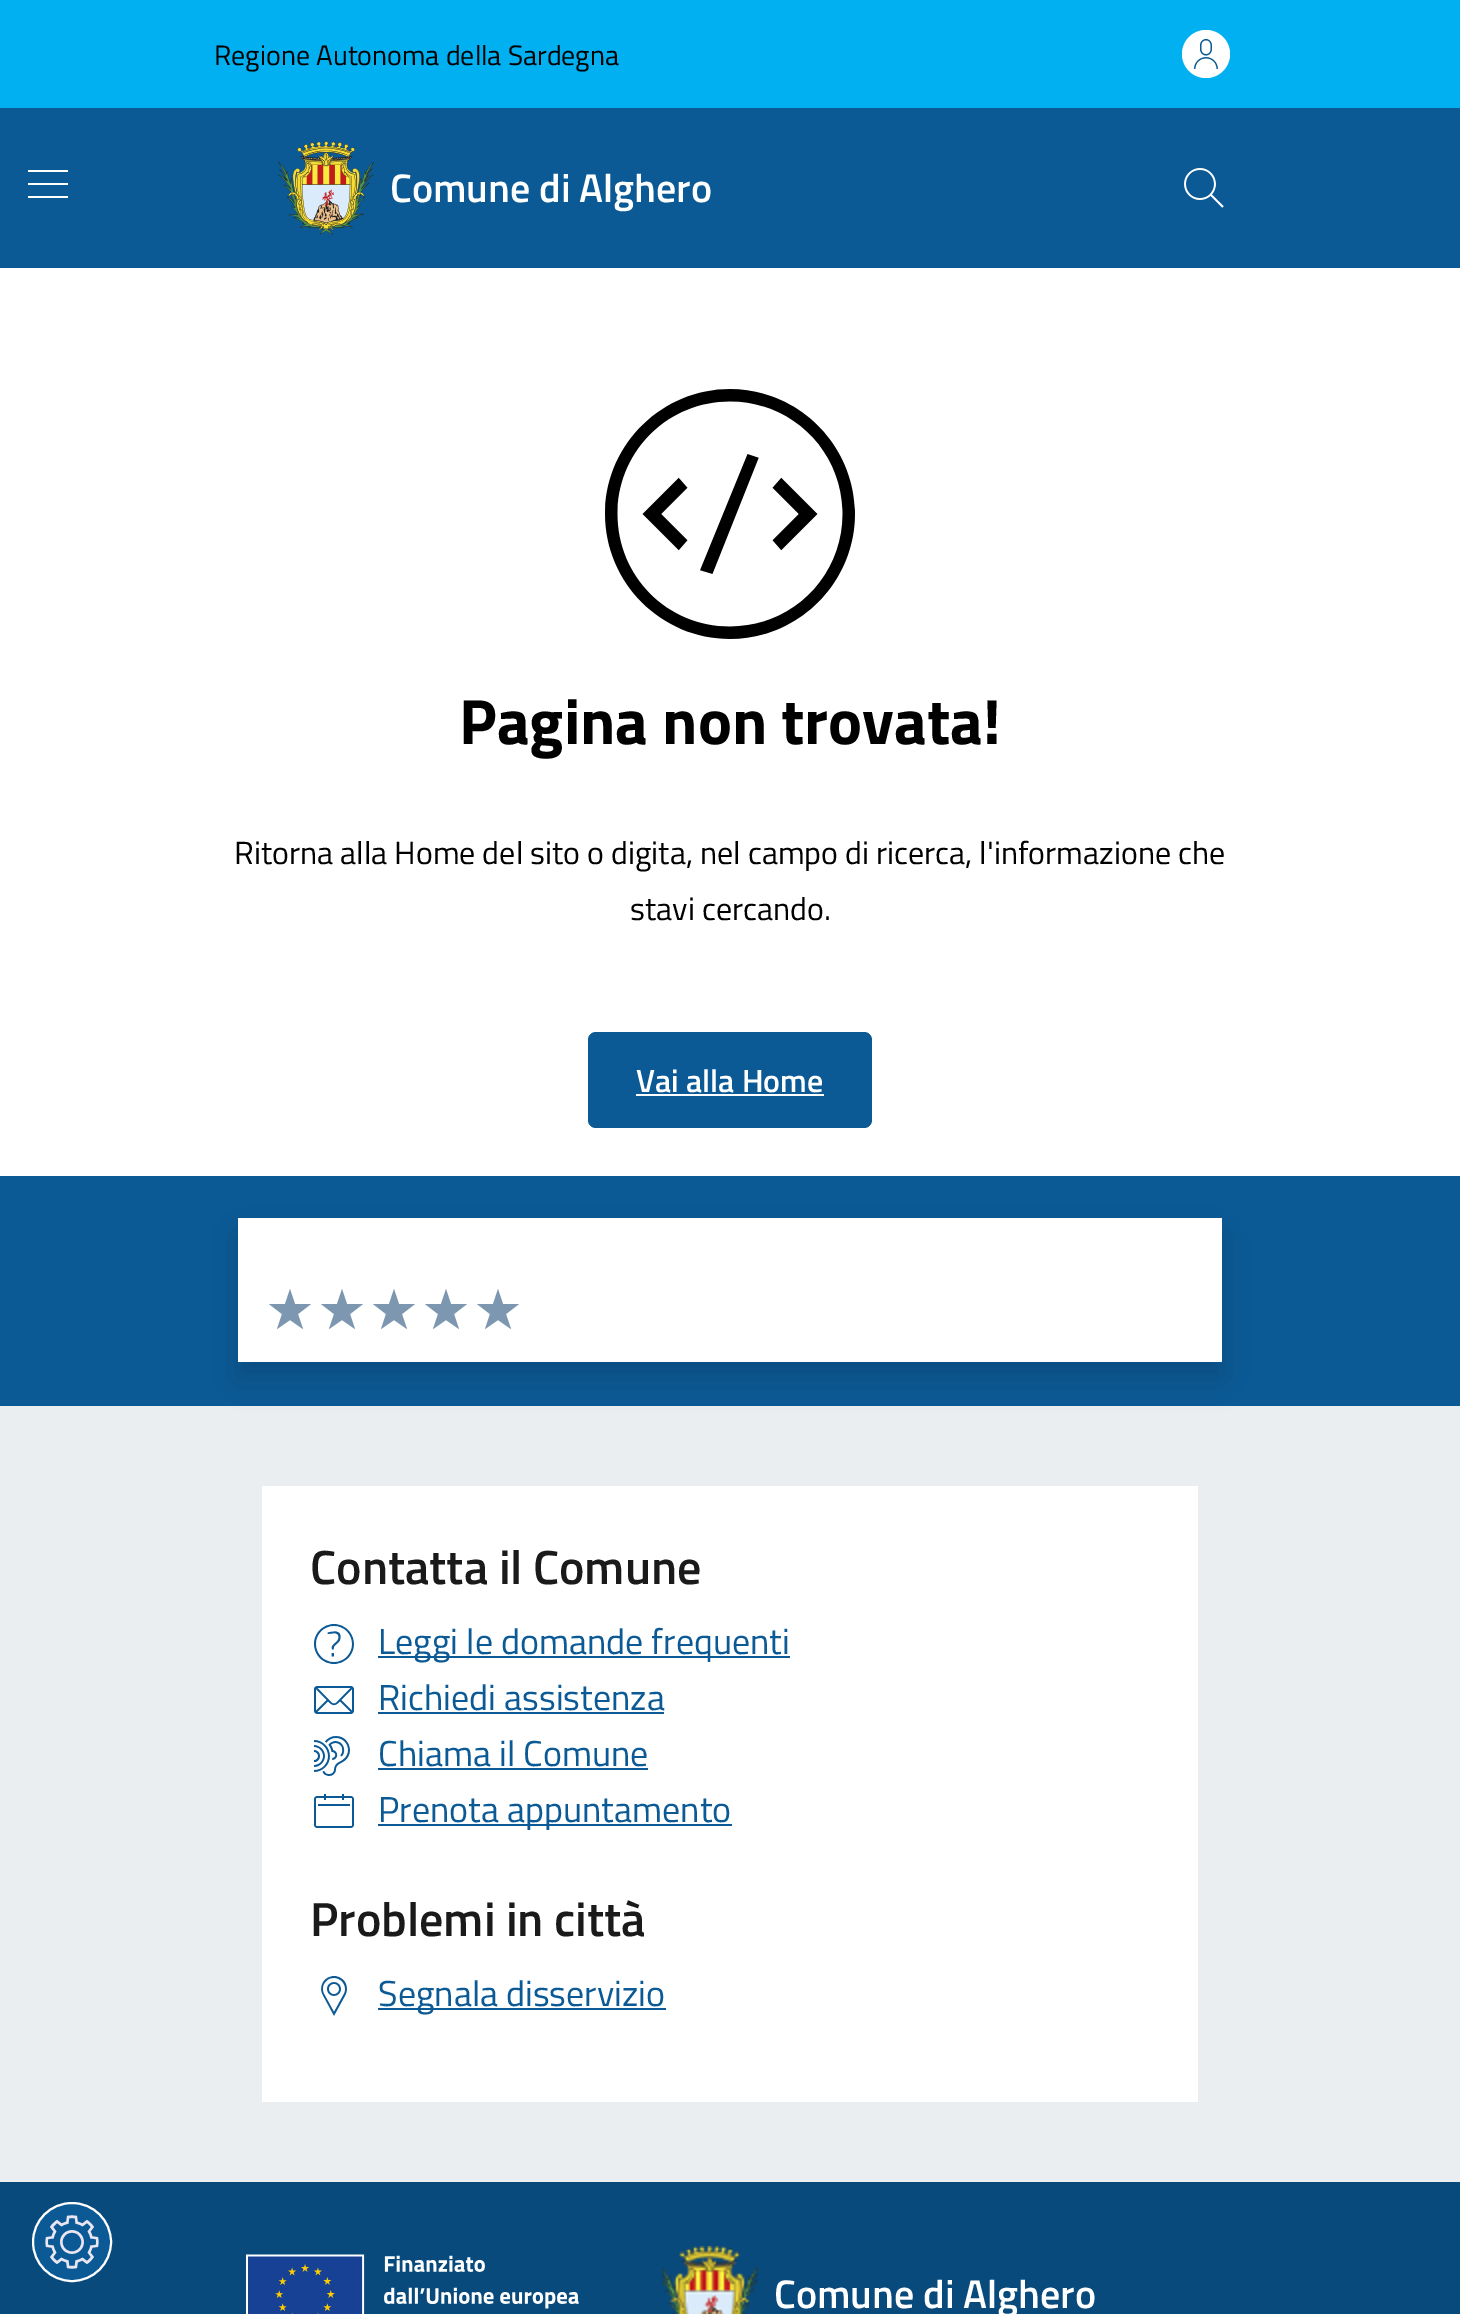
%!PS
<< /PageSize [1460 2314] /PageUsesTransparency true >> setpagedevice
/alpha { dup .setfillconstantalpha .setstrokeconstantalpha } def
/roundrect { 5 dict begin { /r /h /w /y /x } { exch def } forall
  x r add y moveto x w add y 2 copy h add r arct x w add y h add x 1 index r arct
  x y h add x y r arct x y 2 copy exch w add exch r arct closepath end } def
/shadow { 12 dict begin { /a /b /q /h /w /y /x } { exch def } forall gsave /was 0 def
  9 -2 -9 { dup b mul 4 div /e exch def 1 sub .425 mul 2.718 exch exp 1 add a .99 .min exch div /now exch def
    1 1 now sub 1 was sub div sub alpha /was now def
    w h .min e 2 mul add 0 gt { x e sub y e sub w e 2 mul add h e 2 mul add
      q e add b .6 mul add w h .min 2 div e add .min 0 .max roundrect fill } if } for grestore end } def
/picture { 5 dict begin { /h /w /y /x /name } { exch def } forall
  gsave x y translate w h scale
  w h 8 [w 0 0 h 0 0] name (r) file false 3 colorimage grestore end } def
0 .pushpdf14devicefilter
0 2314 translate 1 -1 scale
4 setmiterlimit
1 setgray
0 0 1460 2314 rectfill
0 0.69 0.941 setrgbcolor
0 0 1460 108 rectfill
/TitilliumWeb-Regular [28 0 0 -28 0 0] selectfont
0 setgray
214 65 moveto (Regione Autonoma della Sardegna) show
1 setgray
newpath 1206 54 24 0 360 arc closepath fill
(img1.rgb) 1194 39 24 30 picture
0.043 0.353 0.588 setrgbcolor
0 108 1460 160 rectfill
(img2.rgb) 28 170 40 28 picture
(img3.rgb) 278 141 96 94 picture
/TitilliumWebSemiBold-SemiBold [40 0 0 -40 0 0] selectfont
1 setgray
390 202 moveto (Comune di Alghero) show
(img4.rgb) 1184 168 40 40 picture
(img5.rgb) 605 389 250 250 picture
/TitilliumWeb-Bold [64 0 0 -64 0 0] selectfont
0 setgray
459 744 moveto (Pagina non trovata!) show
/TitilliumWeb-Regular [32 0 0 -32 0 0] selectfont
234 864 moveto (Ritorna alla Home del sito o digita, nel campo di ricerca, l'informazione che) show
630 920 moveto (stavi cercando.) show
0.043 0.353 0.588 setrgbcolor
588 1032 284 96 8 roundrect fill
/TitilliumWebSemiBold-SemiBold [32 0 0 -32 0 0] selectfont
1 setgray
636 1092 moveto (Vai alla Home) show
636 1094 188 2 rectfill
0.043 0.353 0.588 setrgbcolor
0 1176 1460 230 rectfill
0.922 0.933 0.941 setrgbcolor
0 1406 1460 776 rectfill
0 setgray
238 1234 984 144 0 16 0.15 shadow
1 setgray
238 1218 984 144 rectfill
0.49 0.592 0.69 setrgbcolor
newpath 290 1289 moveto 285 1304 lineto 269 1304 lineto 282 1314 lineto 277 1329 lineto 290 1320 lineto 303 1329 lineto 298 1314 lineto 311 1304 lineto 295 1304 lineto closepath fill
newpath 342 1289 moveto 337 1304 lineto 321 1304 lineto 334 1314 lineto 329 1329 lineto 342 1320 lineto 355 1329 lineto 350 1314 lineto 363 1304 lineto 347 1304 lineto closepath fill
newpath 394 1289 moveto 389 1304 lineto 373 1304 lineto 386 1314 lineto 381 1329 lineto 394 1320 lineto 407 1329 lineto 402 1314 lineto 415 1304 lineto 399 1304 lineto closepath fill
newpath 446 1289 moveto 441 1304 lineto 425 1304 lineto 438 1314 lineto 433 1329 lineto 446 1320 lineto 459 1329 lineto 454 1314 lineto 467 1304 lineto 451 1304 lineto closepath fill
newpath 498 1289 moveto 493 1304 lineto 477 1304 lineto 490 1314 lineto 485 1329 lineto 498 1320 lineto 511 1329 lineto 506 1314 lineto 519 1304 lineto 503 1304 lineto closepath fill
1 setgray
262 1486 936 616 rectfill
/TitilliumWebSemiBold-SemiBold [48 0 0 -48 0 0] selectfont
0.102 setgray
310 1584 moveto (Contatta il Comune) show
(img6.rgb) 314 1624 40 40 picture
0.043 0.353 0.588 setrgbcolor
378 1656 412 2 rectfill
/TitilliumWeb-Regular [36 0 0 -36 0 0] selectfont
378 1654 moveto (Leggi le domande frequenti) show
(img7.rgb) 314 1686 40 28 picture
378 1710 moveto (Richiedi assistenza) show
378 1712 286 2 rectfill
(img8.rgb) 314 1736 36 40 picture
378 1766 moveto (Chiama il Comune) show
378 1768 270 2 rectfill
(img9.rgb) 314 1794 40 34 picture
378 1824 354 2 rectfill
378 1822 moveto (Prenota appuntamento) show
/TitilliumWebSemiBold-SemiBold [48 0 0 -48 0 0] selectfont
0.102 setgray
310 1936 moveto (Problemi in città) show
(img10.rgb) 321 1976 26 40 picture
0.043 0.353 0.588 setrgbcolor
378 2008 288 2 rectfill
/TitilliumWeb-Regular [36 0 0 -36 0 0] selectfont
378 2006 moveto (Segnala disservizio) show
0.035 0.29 0.486 setrgbcolor
0 2182 1460 132 rectfill
0.043 0.353 0.588 setrgbcolor
newpath 72 2242 39 0 360 arc closepath gsave fill grestore
1 setgray
2 setlinewidth
stroke
(img11.rgb) 45 2215 54 54 picture
(img12.rgb) 246 2254 333 60 picture
(img13.rgb) 662 2246 96 68 picture
/TitilliumWebSemiBold-SemiBold [40 0 0 -40 0 0] selectfont
774 2308 moveto (Comune di Alghero) show
.poppdf14devicefilter showpage
